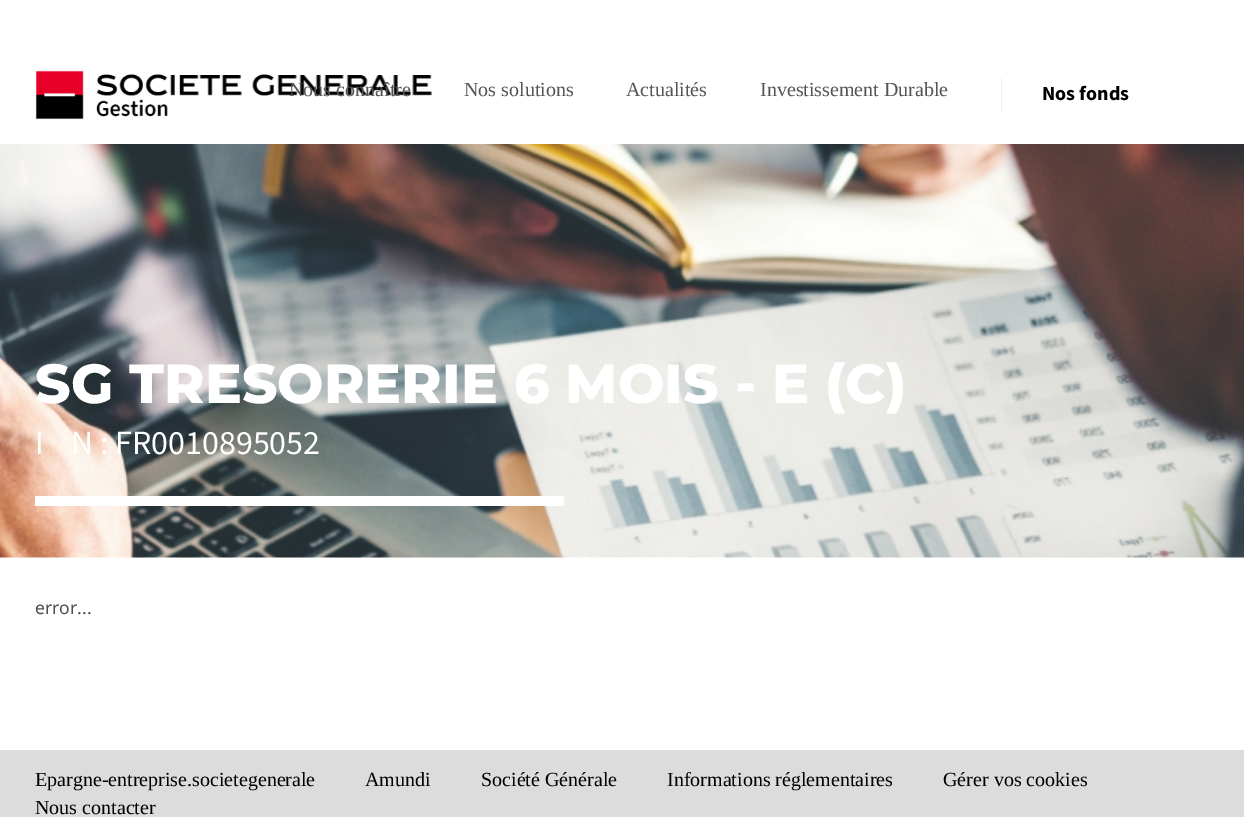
%!PS
<< /PageSize [1244 817] >> setpagedevice
/picture { 5 dict begin { /h /w /y /x /name } { exch def } forall
  gsave x y translate w h scale
  w h 8 [w 0 0 h 0 0] name (r) file false 3 colorimage grestore end } def
0 817 translate 1 -1 scale
4 setmiterlimit
1 setgray
0 0 1244 817 rectfill
(img1.rgb) 35 70 397 50 picture
/LiberationSerif-Regular [20 0 0 -20 0 0] selectfont
0.329 setgray
289 96 moveto (Nous connaître) show
464 96 moveto (Nos solutions) show
626 96 moveto (Actualités) show
760 96 moveto (Investissement Durable) show
0.937 setgray
1001 78 1 35 rectfill
/SourceSansPro-Bold [20 0 0 -20 0 0] selectfont
0 setgray
1042 100 moveto (Nos fonds) show
(img2.rgb) 0 144 1244 414 picture
/Montserrat-ExtraBold [55 0 0 -55 0 0] selectfont
1 setgray
35 403 moveto (SG TRESORERIE 6 MOIS - E \(C\)) show
/SourceSansPro-Regular [34 0 0 -34 0 0] selectfont
35 454 moveto (I) show
71 454 moveto (N : FR0010895052) show
35 496 529 10 rectfill
/NotoSans-Regular [17.5 0 0 -17.5 0 0] selectfont
0.302 0.302 0.31 setrgbcolor
35 614 moveto (error...) show
0.863 setgray
0 750 1244 67 rectfill
/LiberationSerif-Regular [20 0 0 -20 0 0] selectfont
0 setgray
35 786 moveto (Epargne-entreprise.societegenerale) show
365 786 moveto (Amundi) show
481 786 moveto (Société Générale) show
667 786 moveto (Informations réglementaires) show
943 786 moveto (Gérer vos cookies) show
35 814 moveto (Nous contacter) show
showpage
